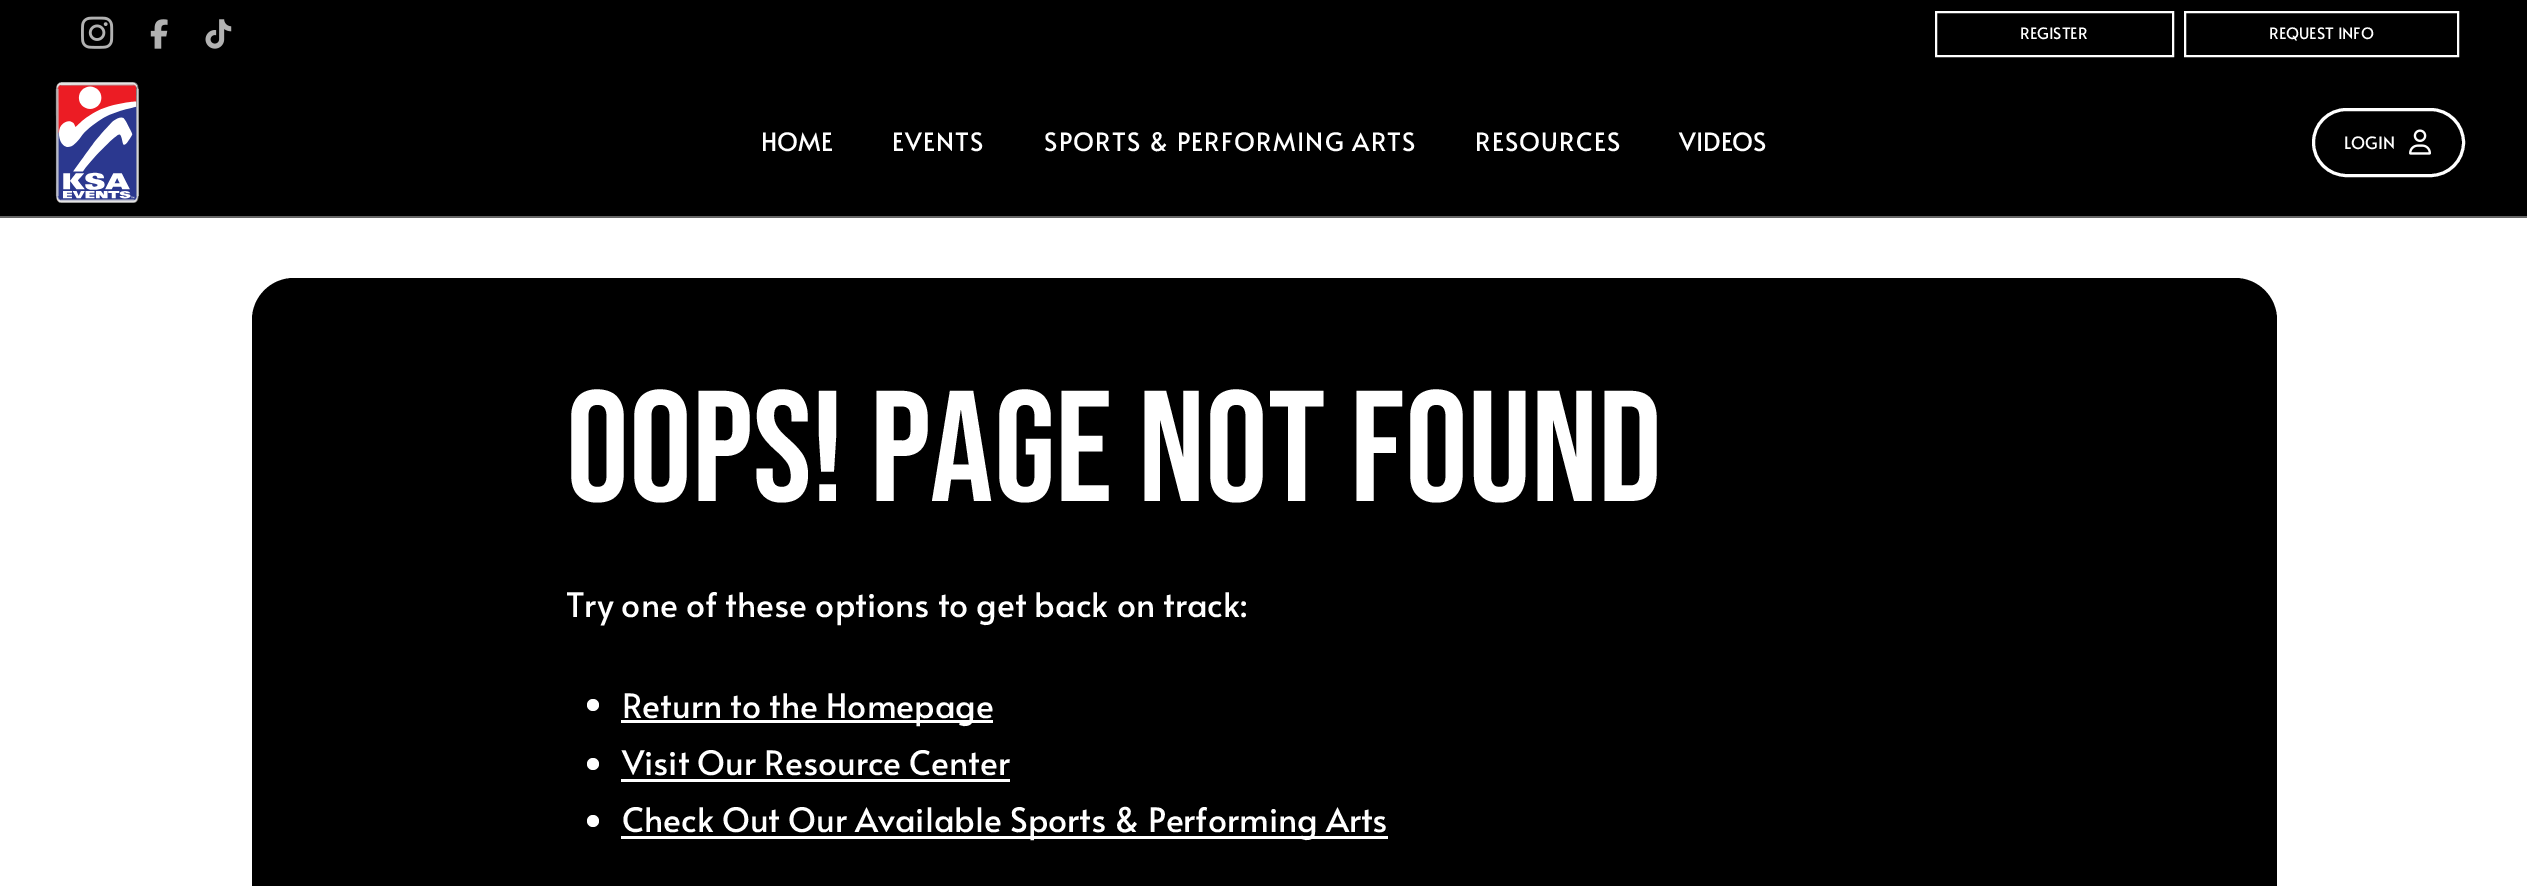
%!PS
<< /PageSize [2527 886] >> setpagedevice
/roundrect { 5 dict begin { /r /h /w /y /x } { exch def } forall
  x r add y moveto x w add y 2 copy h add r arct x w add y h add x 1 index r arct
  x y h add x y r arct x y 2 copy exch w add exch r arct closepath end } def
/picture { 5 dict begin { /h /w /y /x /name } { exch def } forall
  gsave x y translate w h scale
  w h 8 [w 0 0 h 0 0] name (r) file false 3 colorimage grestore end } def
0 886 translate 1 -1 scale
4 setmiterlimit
1 setgray
0 0 2527 886 rectfill
0 setgray
0 0 2527 216 rectfill
(img1.rgb) 81 16 33 33 picture
(img2.rgb) 150 19 18 30 picture
(img3.rgb) 205 19 27 30 picture
1 setgray
2 setlinewidth
1936 12 237 44 rectstroke
/Alata-Regular [15.75 0 0 -15.75 0 0] selectfont
2020 39 moveto (REGISTER) show
2185 12 273 44 rectstroke
2269 39 moveto (REQUEST INFO) show
0.4 setgray
0 216 2527 2 rectfill
(img4.rgb) 55 82 84 121 picture
/Alata-Regular [25.25 0 0 -25.25 0 0] selectfont
1 setgray
761 151 moveto (HOME) show
892 151 moveto 1.25 0 (EVENTS) ashow
1044 151 moveto 1.25 0 (SPORTS & PERFORMING ARTS) ashow
1475 151 moveto 1.25 0 (RESOURCES) ashow
1679 151 moveto (VIDEOS) show
3 setlinewidth
2313.5 109.5 150 66 33 roundrect stroke
/Alata-Regular [17 0 0 -17 0 0] selectfont
2344 149 moveto (LOGIN) show
(img5.rgb) 2409 129 22 26 picture
0 setgray
252 278 2025 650 42 roundrect fill
/BebasNeue-Regular [157.5 0 0 -157.5 0 0] selectfont
1 setgray
566 501 moveto (OOPS! PAGE NOT FOUND) show
/Alata-Regular [33.6 0 0 -33.6 0 0] selectfont
566 617 moveto (Try one of these options to get back on track:) show
newpath 593 705 6 0 360 arc closepath fill
621 720 372 3 rectfill
622 718 moveto (Return to the Homepage) show
newpath 593 764 6 0 360 arc closepath fill
622 775 moveto (Visit Our Resource Center) show
621 779 389 3 rectfill
newpath 593 821 6 0 360 arc closepath fill
621 836 767 3 rectfill
622 832 moveto (Check Out Our Available Sports & Performing Arts) show
showpage
